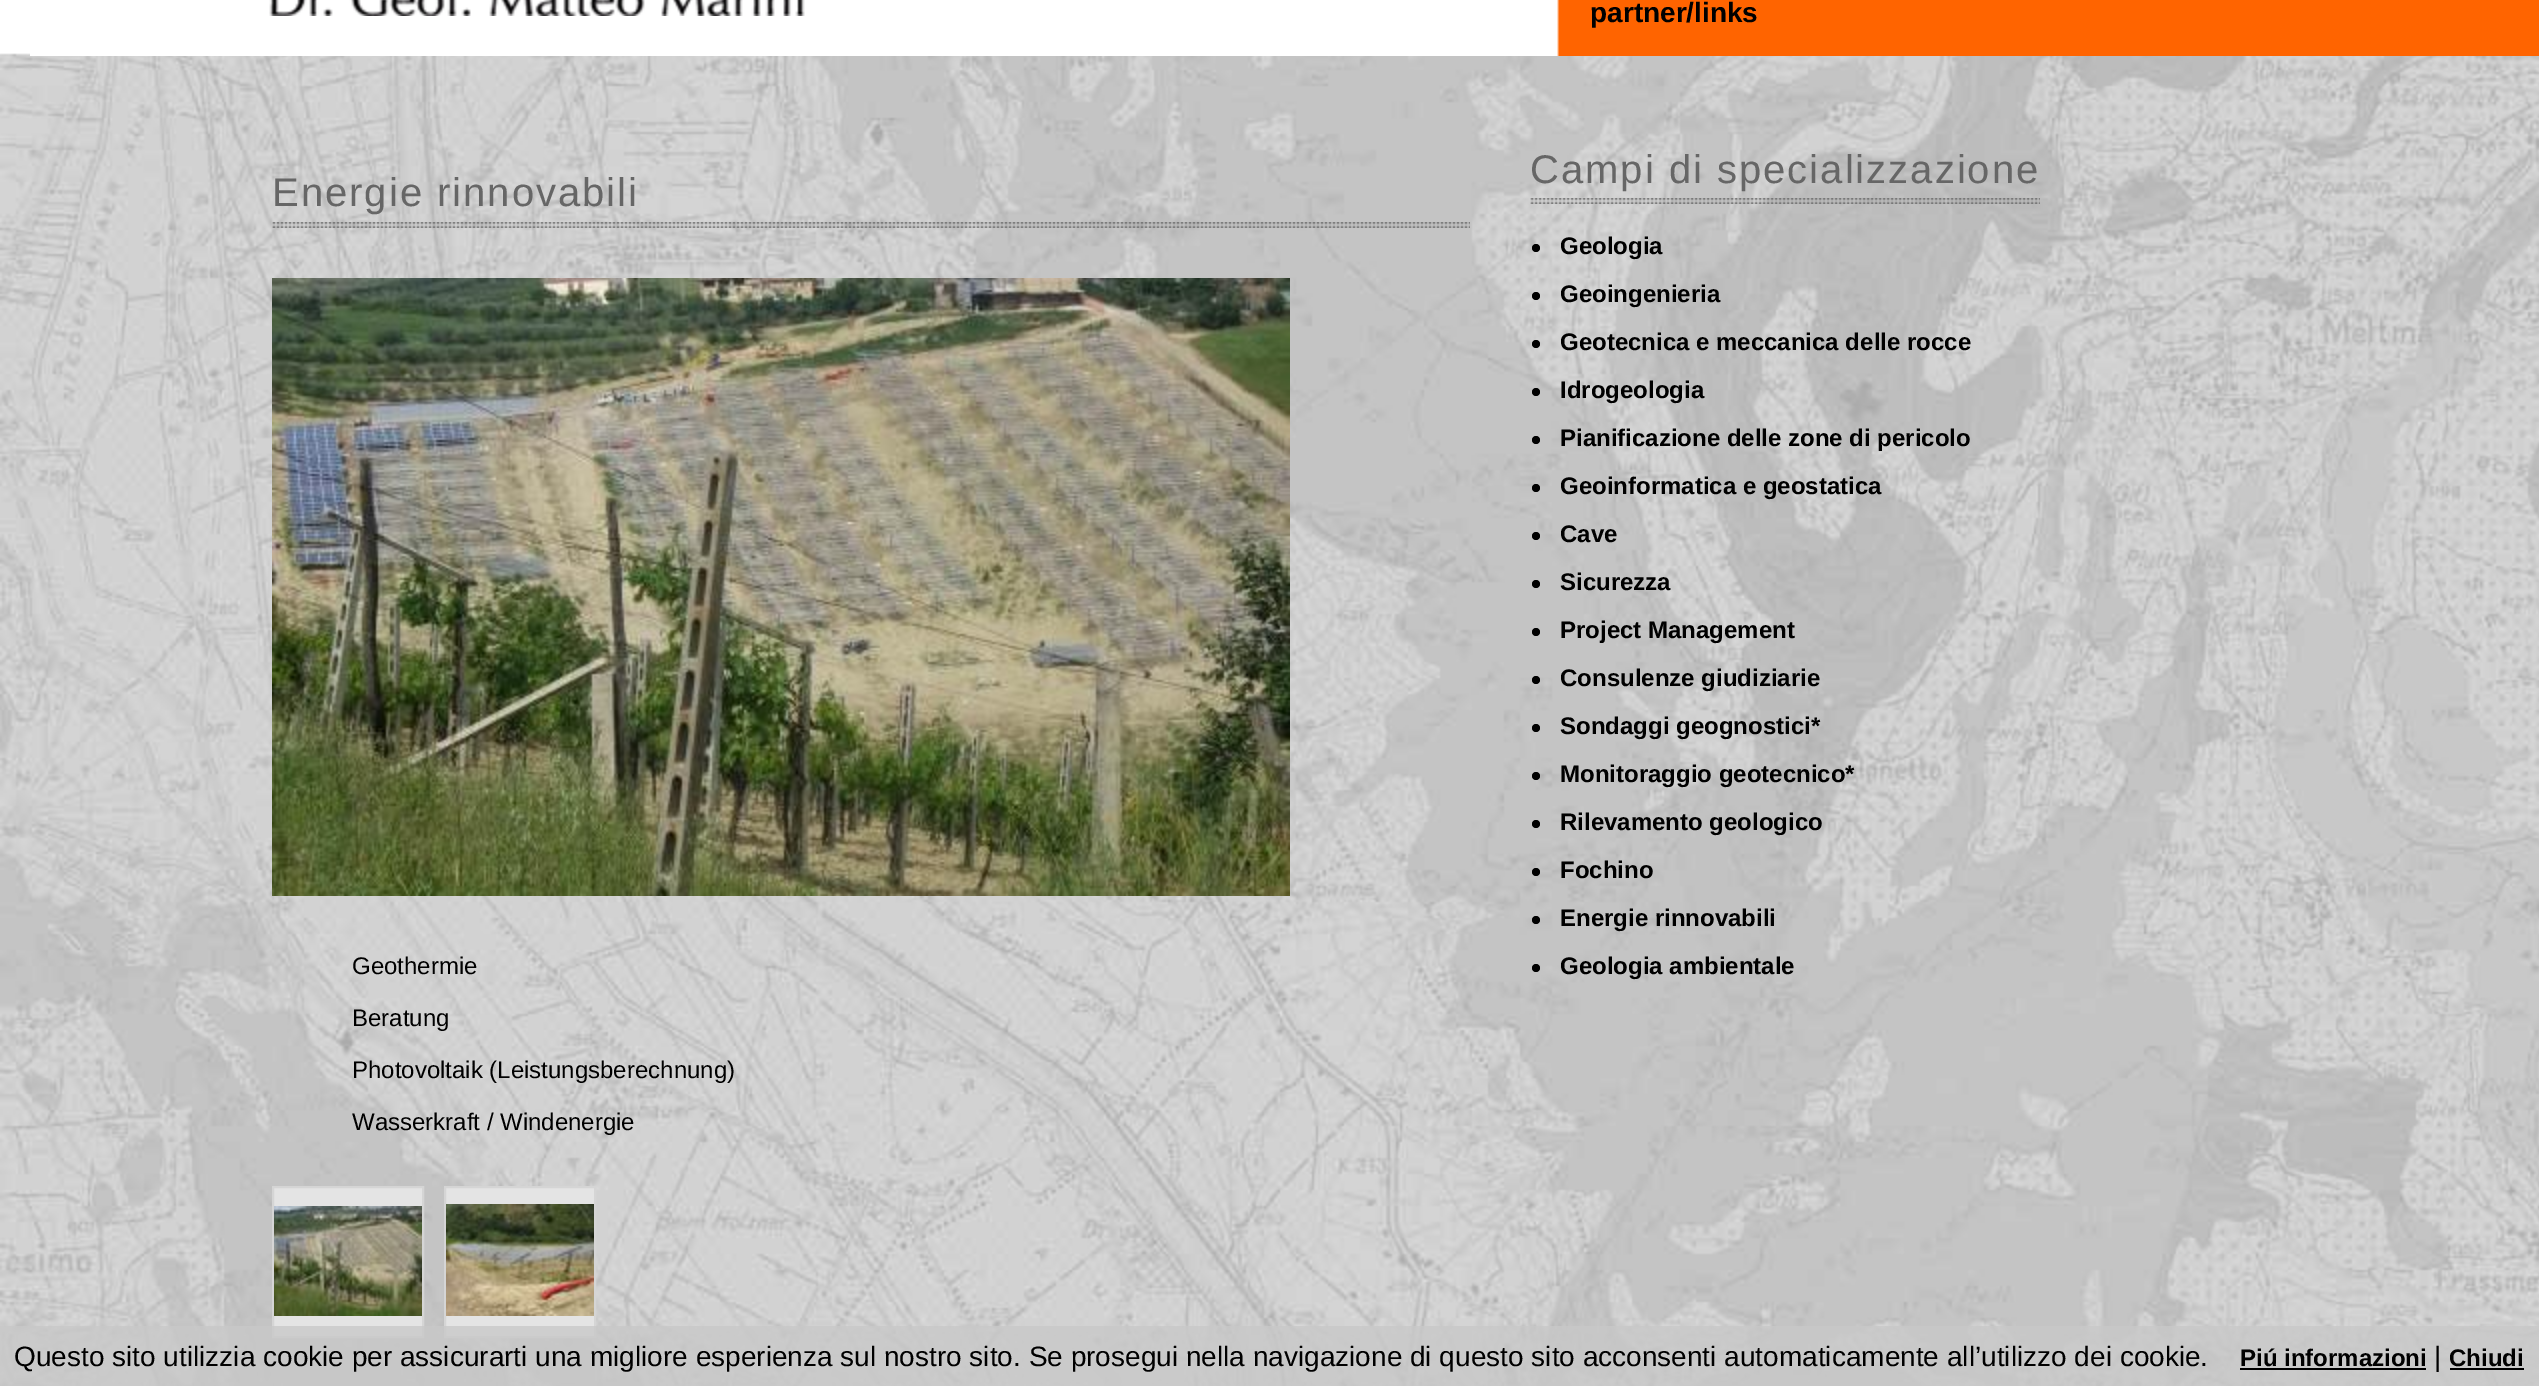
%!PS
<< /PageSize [2539 1386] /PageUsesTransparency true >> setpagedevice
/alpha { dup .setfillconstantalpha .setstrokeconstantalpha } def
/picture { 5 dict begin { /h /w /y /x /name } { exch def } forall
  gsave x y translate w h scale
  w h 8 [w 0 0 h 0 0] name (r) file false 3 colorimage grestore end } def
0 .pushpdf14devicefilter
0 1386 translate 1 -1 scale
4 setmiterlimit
1 setgray
0 0 2539 1386 rectfill
(img1.rgb) 0 0 2539 1386 picture
(img2.rgb) 269 0 536 16 picture
30 53 1529 3 rectfill
(img3.rgb) 1557 0 982 56 picture
/LiberationSans-Bold [28 0 0 -28 0 0] selectfont
0 setgray
1590 22 moveto (partner/links) show
(img4.rgb) 272 222 1198 6 picture
/LiberationSans-Regular [40 0 0 -40 0 0] selectfont
0.4 setgray
272 206 moveto 2 0 (Energie rinnovabili) ashow
(img5.rgb) 272 278 1018 618 picture
/LiberationSans-Regular [24 0 0 -24 0 0] selectfont
0 setgray
352 974 moveto (Geothermie) show
352 1026 moveto (Beratung) show
352 1078 moveto (Photovoltaik \(Leistungsberechnung\)) show
352 1130 moveto (Wasserkraft / Windenergie) show
0.894 setgray
newpath 273 1187 moveto 423 1187 lineto 423 1337 lineto 273 1337 lineto closepath gsave fill grestore
0.835 setgray
2 setlinewidth
stroke
(img6.rgb) 274 1206 148 110 picture
0.894 setgray
newpath 445 1187 moveto 595 1187 lineto 595 1337 lineto 445 1337 lineto closepath gsave fill grestore
0.835 setgray
stroke
(img7.rgb) 446 1204 148 112 picture
(img8.rgb) 1530 198 510 6 picture
/LiberationSans-Regular [40 0 0 -40 0 0] selectfont
0.4 setgray
1530 183 moveto 2 0 (Campi di specializzazione) ashow
0 setgray
newpath 1536 248 4 0 360 arc closepath fill
/LiberationSans-Bold [24 0 0 -24 0 0] selectfont
1560 254 moveto (Geologia) show
newpath 1536 296 4 0 360 arc closepath fill
1560 302 moveto (Geoingenieria) show
newpath 1536 344 4 0 360 arc closepath fill
1560 350 moveto (Geotecnica e meccanica delle rocce) show
newpath 1536 392 4 0 360 arc closepath fill
1560 398 moveto (Idrogeologia) show
newpath 1536 440 4 0 360 arc closepath fill
1560 446 moveto (Pianificazione delle zone di pericolo) show
newpath 1536 488 4 0 360 arc closepath fill
1560 494 moveto (Geoinformatica e geostatica) show
newpath 1536 536 4 0 360 arc closepath fill
1560 542 moveto (Cave) show
newpath 1536 584 4 0 360 arc closepath fill
1560 590 moveto (Sicurezza) show
newpath 1536 632 4 0 360 arc closepath fill
1560 638 moveto (Project Management) show
newpath 1536 680 4 0 360 arc closepath fill
1560 686 moveto (Consulenze giudiziarie) show
newpath 1536 728 4 0 360 arc closepath fill
1560 734 moveto (Sondaggi geognostici*) show
newpath 1536 776 4 0 360 arc closepath fill
1560 782 moveto (Monitoraggio geotecnico*) show
newpath 1536 824 4 0 360 arc closepath fill
1560 830 moveto (Rilevamento geologico) show
newpath 1536 872 4 0 360 arc closepath fill
1560 878 moveto (Fochino) show
newpath 1536 920 4 0 360 arc closepath fill
1560 926 moveto (Energie rinnovabili) show
newpath 1536 968 4 0 360 arc closepath fill
1560 974 moveto (Geologia ambientale) show
0.8 alpha
0.784 setgray
0 1326 2539 60 rectfill
/LiberationSans-Regular [28 0 0 -28 0 0] selectfont
1 alpha
0 setgray
14 1366 moveto (Questo sito utilizzia cookie per assicurarti una migliore esperienza sul nostro sito. Se prosegui nella navigazione di questo sito acconsenti automaticamente all’utilizzo dei cookie.) show
/LiberationSans-Bold [24 0 0 -24 0 0] selectfont
2240 1366 moveto (Piú informazioni) show
2240 1368 186 2 rectfill
/LiberationSans-Regular [28 0 0 -28 0 0] selectfont
2434 1366 moveto (|) show
/LiberationSans-Bold [24 0 0 -24 0 0] selectfont
2449 1366 moveto (Chiudi) show
2450 1368 74 2 rectfill
.poppdf14devicefilter showpage
